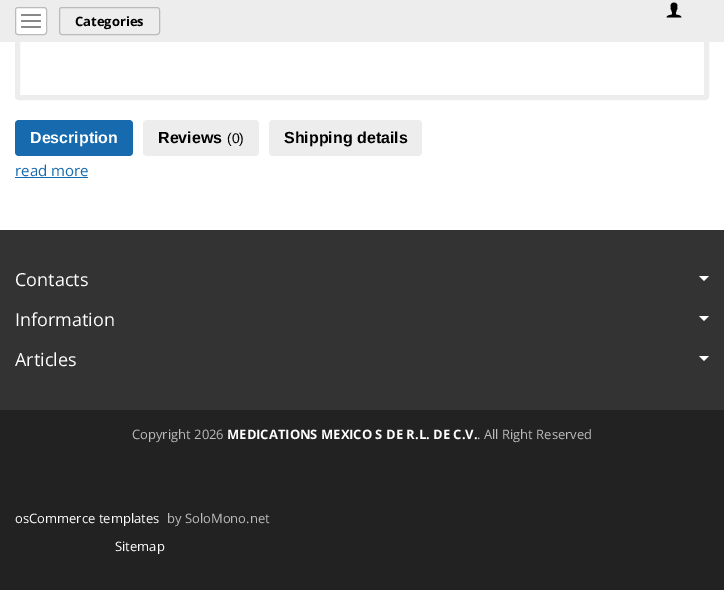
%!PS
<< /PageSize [724 590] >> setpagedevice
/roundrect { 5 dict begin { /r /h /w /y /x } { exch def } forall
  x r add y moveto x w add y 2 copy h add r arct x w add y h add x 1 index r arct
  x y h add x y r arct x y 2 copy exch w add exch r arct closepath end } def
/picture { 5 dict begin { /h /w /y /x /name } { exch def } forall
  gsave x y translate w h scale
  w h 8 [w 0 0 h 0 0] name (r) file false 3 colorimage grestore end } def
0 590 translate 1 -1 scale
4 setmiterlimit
1 setgray
0 0 724 590 rectfill
0.929 setgray
5 setlinewidth
17.5 -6.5 689 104 1.5 roundrect stroke
0 0 724 42 rectfill
1 setgray
15.5 7.5 31 27 2.5 roundrect gsave fill grestore
0.733 setgray
1 setlinewidth
stroke
0.533 setgray
21 14 20 2 1 roundrect fill
21 20 20 2 1 roundrect fill
21 26 20 2 1 roundrect fill
0.733 setgray
59.5 7.5 100 27 2.5 roundrect stroke
/OpenSans-Bold [13 0 0 -13 0 0] selectfont
0 setgray
75 26 moveto (Categories) show
(img1.rgb) 666 2 16 16 picture
0.09 0.416 0.682 setrgbcolor
15 120 118 36 4 roundrect fill
/LiberationSans-Bold [16 0 0 -16 0 0] selectfont
1 setgray
30 143 moveto (Description) show
0.929 setgray
143 120 116 36 4 roundrect fill
0 setgray
158 143 moveto (Reviews) show
/LiberationSans-Regular [14 0 0 -14 0 0] selectfont
227 143 moveto (\(0\)) show
0.929 setgray
269 120 153 36 4 roundrect fill
/LiberationSans-Bold [16 0 0 -16 0 0] selectfont
0 setgray
284 143 moveto (Shipping details) show
/OpenSans-Regular [15 0 0 -15 0 0] selectfont
0.09 0.416 0.682 setrgbcolor
15 176 moveto (read more) show
15 177 73 1 rectfill
0.2 setgray
0 230 724 180 rectfill
/OpenSans-Regular [18 0 0 -18 0 0] selectfont
1 setgray
15 286 moveto (Contacts) show
newpath 699 276 moveto 709 276 lineto 704 281 lineto closepath fill
15 326 moveto (Information) show
newpath 699 316 moveto 709 316 lineto 704 321 lineto closepath fill
15 366 moveto (Articles) show
newpath 699 356 moveto 709 356 lineto 704 361 lineto closepath fill
0.133 setgray
0 410 724 180 rectfill
/OpenSans-Regular [13 0 0 -13 0 0] selectfont
0.733 setgray
132 439 moveto (Copyright 2026) show
/OpenSans-Bold [13 0 0 -13 0 0] selectfont
1 setgray
227 439 moveto (MEDICATIONS MEXICO S DE R.L. DE C.V.) show
/OpenSans-Regular [13 0 0 -13 0 0] selectfont
0.733 setgray
477 439 moveto (. All Right Reserved) show
1 setgray
15 523 moveto (osCommerce templates) show
0.733 setgray
167 523 moveto (by SoloMono.net) show
1 setgray
115 551 moveto (Sitemap) show
showpage
